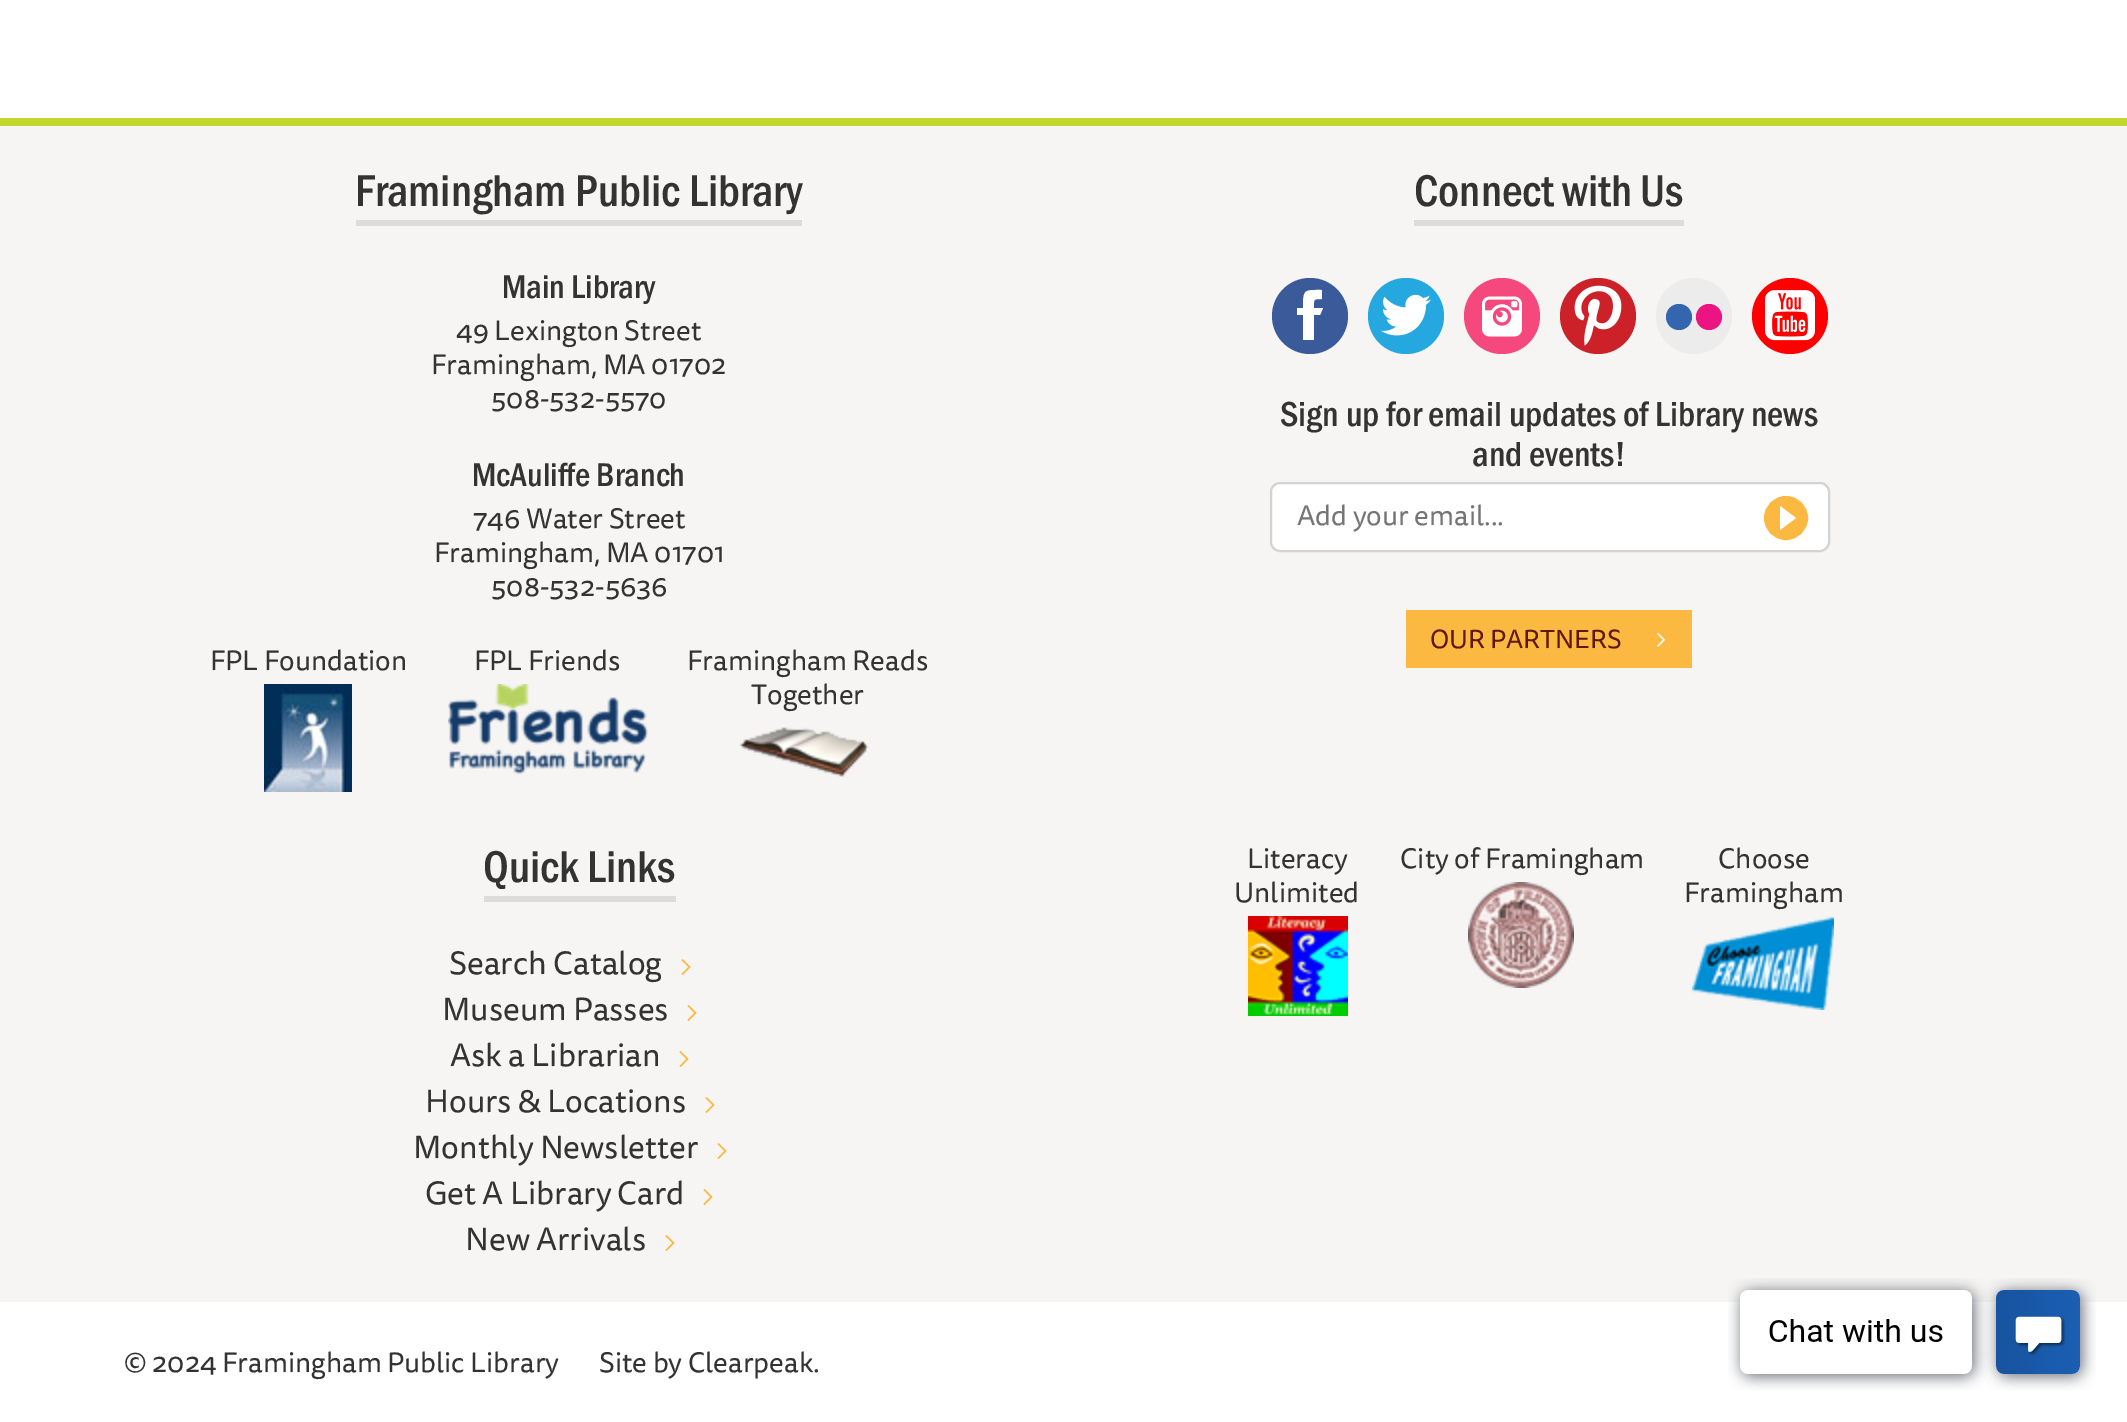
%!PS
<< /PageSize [2127 1422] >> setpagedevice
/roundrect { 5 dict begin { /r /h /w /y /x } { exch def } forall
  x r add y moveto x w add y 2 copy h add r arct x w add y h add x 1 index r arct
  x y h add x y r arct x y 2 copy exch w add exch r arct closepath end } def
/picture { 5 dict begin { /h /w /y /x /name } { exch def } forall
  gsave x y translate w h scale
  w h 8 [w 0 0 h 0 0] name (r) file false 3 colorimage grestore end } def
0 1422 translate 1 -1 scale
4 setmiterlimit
1 setgray
0 0 2127 1422 rectfill
0.965 0.961 0.957 setrgbcolor
0 126 2127 1176 rectfill
0.757 0.843 0.18 setrgbcolor
0 118 2127 8 rectfill
0.863 setgray
356 220 446 6 rectfill
/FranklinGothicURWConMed-Regular [46 0 0 -46 0 0] selectfont
0.2 setgray
355 206 moveto (Framingham Public Library) show
/FranklinGothicURWConMed-Regular [34 0 0 -34 0 0] selectfont
502 298 moveto (Main Library) show
/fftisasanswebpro-Regular [28 0 0 -28 0 0] selectfont
456 340 moveto (49 Lexington Street) show
431 374 moveto (Framingham, MA 01702) show
491 408 moveto (508-532-5570) show
/FranklinGothicURWConMed-Regular [34 0 0 -34 0 0] selectfont
472 486 moveto (McAuliffe Branch) show
/fftisasanswebpro-Regular [28 0 0 -28 0 0] selectfont
473 528 moveto (746 Water Street) show
434 562 moveto (Framingham, MA 01701) show
491 596 moveto (508-532-5636) show
210 670 moveto (FPL Foundation) show
(img1.rgb) 264 684 88 108 picture
474 670 moveto (FPL Friends) show
(img2.rgb) 448 684 200 90 picture
687 670 moveto (Framingham Reads) show
751 704 moveto (Together) show
(img3.rgb) 739 727 130 50 picture
0.863 setgray
1414 220 270 6 rectfill
/FranklinGothicURWConMed-Regular [46 0 0 -46 0 0] selectfont
0.2 setgray
1414 206 moveto (Connect with Us) show
0.231 0.353 0.604 setrgbcolor
newpath 1310 316 38 0 360 arc closepath fill
1 setgray
newpath 1323 308 moveto 1314 308 lineto 1314 299 1313 299 1322 299 curveto 1322 290 lineto 1304 290 1303 289 1303 308 curveto 1297 308 lineto 1297 315 lineto 1303 315 lineto 1303 340 lineto 1314 340 lineto 1314 315 lineto 1320 315 lineto closepath fill
0.145 0.659 0.878 setrgbcolor
newpath 1406 316 38 0 360 arc closepath fill
(img4.rgb) 1381 294 50 42 picture
0.961 0.286 0.49 setrgbcolor
newpath 1502 316 38 0 360 arc closepath fill
(img5.rgb) 1482 296 40 41 picture
0.804 0.129 0.161 setrgbcolor
newpath 1598 316 38 0 360 arc closepath fill
(img6.rgb) 1574 285 48 61 picture
0.922 0.925 0.922 setrgbcolor
newpath 1694 316 38 0 360 arc closepath fill
0.204 0.4 0.69 setrgbcolor
newpath 1679 317 13 0 360 arc closepath fill
0.925 0.075 0.514 setrgbcolor
newpath 1709 317 13 0 360 arc closepath fill
1 0 0 setrgbcolor
newpath 1790 316 38 0 360 arc closepath fill
(img7.rgb) 1765 290 50 51 picture
/FranklinGothicURWConMed-Regular [36 0 0 -36 0 0] selectfont
0.2 setgray
1280 426 moveto (Sign up for email updates of Library news) show
1472 466 moveto (and events!) show
1 setgray
1271 483 558 68 9 roundrect gsave fill grestore
0.827 setgray
2 setlinewidth
stroke
/fftisasanswebpro-Regular [28 0 0 -28 0 0] selectfont
0.459 setgray
1297 525 moveto (Add your email...) show
0.984 0.725 0.259 setrgbcolor
newpath 1786 518 21 0 360 arc closepath gsave fill grestore
stroke
1 setgray
newpath 1780 530 moveto 1780 506 lineto 1796 518 lineto closepath fill
0.984 0.725 0.259 setrgbcolor
1406 610 286 58 rectfill
/fftisasanswebpro-Regular [26 0 0 -26 0 0] selectfont
0.369 0.094 0.02 setrgbcolor
1430 648 moveto (OUR PARTNERS) show
(img8.rgb) 1657 632 8 15 picture
0.863 setgray
484 896 192 6 rectfill
/FranklinGothicURWConMed-Regular [46 0 0 -46 0 0] selectfont
0.2 setgray
483 882 moveto (Quick Links) show
/fftisasanswebpro-Regular [32 0 0 -32 0 0] selectfont
449 974 moveto (Search Catalog) show
(img9.rgb) 681 959 10 16 picture
442 1020 moveto (Museum Passes) show
(img9.rgb) 687 1005 10 16 picture
450 1066 moveto (Ask a Librarian) show
(img9.rgb) 679 1051 10 16 picture
425 1112 moveto (Hours & Locations) show
(img9.rgb) 705 1097 10 16 picture
413 1158 moveto (Monthly Newsletter) show
(img9.rgb) 717 1143 10 16 picture
425 1204 moveto (Get A Library Card) show
(img9.rgb) 703 1189 10 16 picture
465 1250 moveto (New Arrivals) show
(img9.rgb) 665 1235 10 16 picture
/fftisasanswebpro-Regular [28 0 0 -28 0 0] selectfont
1247 868 moveto (Literacy) show
1234 902 moveto (Unlimited) show
(img10.rgb) 1248 916 100 100 picture
1400 868 moveto (City of Framingham) show
(img11.rgb) 1468 882 106 106 picture
1718 868 moveto (Choose) show
1684 902 moveto (Framingham) show
(img12.rgb) 1692 916 142 94 picture
124 1372 moveto (© 2024 Framingham Public Library) show
599 1372 moveto (Site by Clearpeak.) show
(img13.rgb) 1728 1278 368 112 picture
showpage
